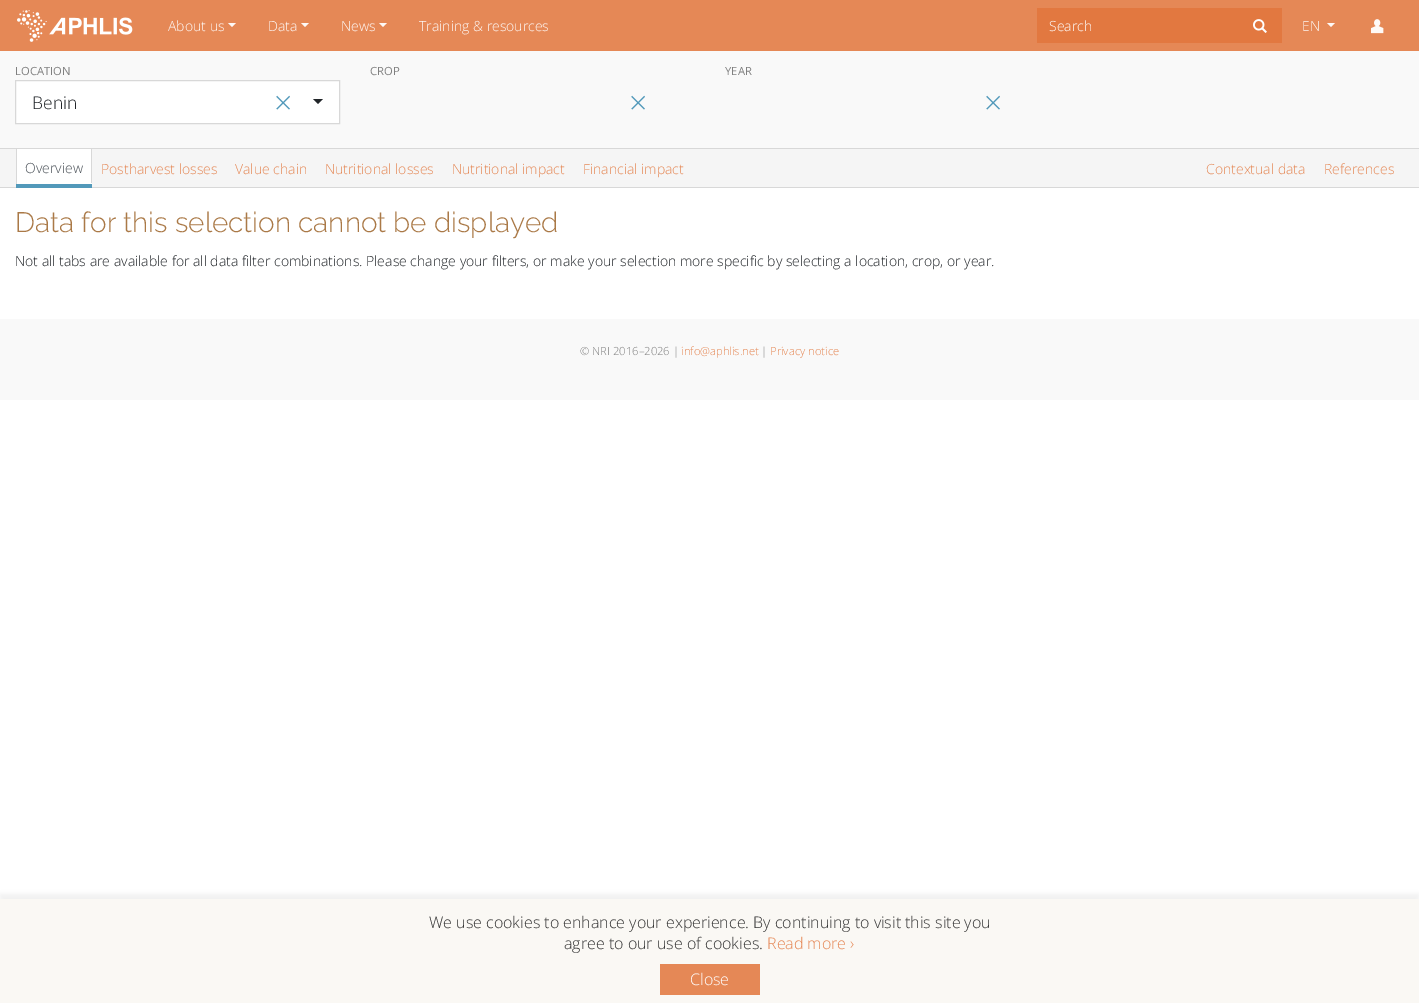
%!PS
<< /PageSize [1419 1003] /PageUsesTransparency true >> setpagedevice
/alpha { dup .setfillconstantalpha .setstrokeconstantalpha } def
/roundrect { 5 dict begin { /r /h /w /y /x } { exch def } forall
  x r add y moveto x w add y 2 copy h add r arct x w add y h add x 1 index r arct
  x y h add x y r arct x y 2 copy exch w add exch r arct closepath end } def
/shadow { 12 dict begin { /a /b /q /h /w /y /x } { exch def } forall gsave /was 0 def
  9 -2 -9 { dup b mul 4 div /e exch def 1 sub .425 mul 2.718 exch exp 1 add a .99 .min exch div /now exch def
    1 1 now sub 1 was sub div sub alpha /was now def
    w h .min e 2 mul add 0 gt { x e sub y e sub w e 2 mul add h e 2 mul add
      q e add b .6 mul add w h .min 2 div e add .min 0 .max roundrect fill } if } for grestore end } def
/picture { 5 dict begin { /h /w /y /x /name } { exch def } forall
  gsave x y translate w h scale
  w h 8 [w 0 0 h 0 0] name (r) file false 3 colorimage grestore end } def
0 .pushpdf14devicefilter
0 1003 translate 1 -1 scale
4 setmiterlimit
1 setgray
0 0 1419 1003 rectfill
0.898 0.533 0.337 setrgbcolor
0 0 1419 51 rectfill
(img1.rgb) 17 10 116 32 picture
/OpenSans-Light [14 0 0 -14 0 0] selectfont
0.996 0.976 0.969 setrgbcolor
168 31 moveto (About us) show
newpath 228 23 moveto 236 23 lineto 232 27 lineto closepath fill
268 31 moveto (Data) show
newpath 301 23 moveto 309 23 lineto 305 27 lineto closepath fill
341 31 moveto (News) show
newpath 379 23 moveto 387 23 lineto 383 27 lineto closepath fill
419 31 moveto (Training & resources) show
0.886 0.471 0.251 setrgbcolor
1037 8 245 35 rectfill
1 setgray
1049 31 moveto (Search) show
(img2.rgb) 1253 19 14 14 picture
0.996 0.976 0.969 setrgbcolor
1302 31 moveto (EN) show
newpath 1327 23 moveto 1335 23 lineto 1331 27 lineto closepath fill
(img3.rgb) 1371 19 13 15 picture
0.976 setgray
0 51 1419 97 rectfill
/OpenSans-Regular [11.25 0 0 -11.25 0 0] selectfont
0.502 setgray
15 75 moveto (LOCATION) show
1 setgray
newpath 15.5 80.5 moveto 339.5 80.5 lineto 339.5 123.5 lineto 15.5 123.5 lineto closepath gsave fill grestore
0.847 setgray
stroke
/OpenSans-Light [17.5 0 0 -17.5 0 0] selectfont
0.129 0.145 0.161 setrgbcolor
32 109 moveto (Benin) show
newpath 313 99 moveto 323 99 lineto 318 104 lineto closepath fill
/OpenSans-Light [32 0 0 -32 0 0] selectfont
0.322 0.6 0.729 setrgbcolor
274 114 moveto (×) show
/OpenSans-Regular [11.25 0 0 -11.25 0 0] selectfont
0.502 setgray
370 75 moveto (CROP) show
/OpenSans-Light [32 0 0 -32 0 0] selectfont
0.322 0.6 0.729 setrgbcolor
629 114 moveto (×) show
/OpenSans-Regular [11.25 0 0 -11.25 0 0] selectfont
0.502 setgray
725 75 moveto (YEAR) show
/OpenSans-Light [32 0 0 -32 0 0] selectfont
0.322 0.6 0.729 setrgbcolor
984 114 moveto (×) show
0.961 setgray
0 149 1419 38 rectfill
0.847 setgray
0 148 1419 1 rectfill
0 187 1419 1 rectfill
0.322 0.6 0.729 setrgbcolor
16 184 76 4 rectfill
1 setgray
17 149 74 34 rectfill
0.847 setgray
91 149 1 35 rectfill
1 setgray
16 183 76 1 rectfill
0.847 setgray
16 149 1 35 rectfill
/OpenSans-Light [14 0 0 -14 0 0] selectfont
0.286 0.314 0.341 setrgbcolor
25 173 moveto (Overview) show
0.898 0.533 0.337 setrgbcolor
101 174 moveto (Postharvest losses) show
235 174 moveto (Value chain) show
325 174 moveto (Nutritional losses) show
452 174 moveto (Nutritional impact) show
583 174 moveto (Financial impact) show
1206 174 moveto (Contextual data) show
1324 174 moveto (References) show
/Raleway-Light [28 0 0 -28 0 0] selectfont
0.667 0.475 0.278 setrgbcolor
15 232 moveto (Data for this selection cannot be displayed) show
/OpenSans-Light [14 0 0 -14 0 0] selectfont
0.129 0.145 0.161 setrgbcolor
15 266 moveto (Not all tabs are available for all data filter combinations. Please change your filters, or make your selection more specific by selecting a location, crop, or year.) show
0.976 setgray
0 319 1419 81 rectfill
/OpenSans-Light [11.25 0 0 -11.25 0 0] selectfont
0.502 setgray
580 355 moveto (© NRI 2016–2026 |) show
0.898 0.533 0.337 setrgbcolor
681 355 moveto (info@aphlis.net) show
0.502 setgray
761 355 moveto (|) show
0.898 0.533 0.337 setrgbcolor
770 355 moveto (Privacy notice) show
0 setgray
0 894 1419 104 0 2.5 0.05 shadow
0.98 0.973 0.957 setrgbcolor
0 899 1419 104 rectfill
/OpenSans-Light [16 0 0 -16 0 0] selectfont
0.2 setgray
429 928 moveto (We use cookies to enhance your experience. By continuing to visit this site you) show
564 949 moveto (agree to our use of cookies.) show
0.898 0.533 0.337 setrgbcolor
767 949 moveto (Read more ›) show
660 964 100 31 rectfill
1 setgray
690 985 moveto (Close) show
.poppdf14devicefilter showpage
